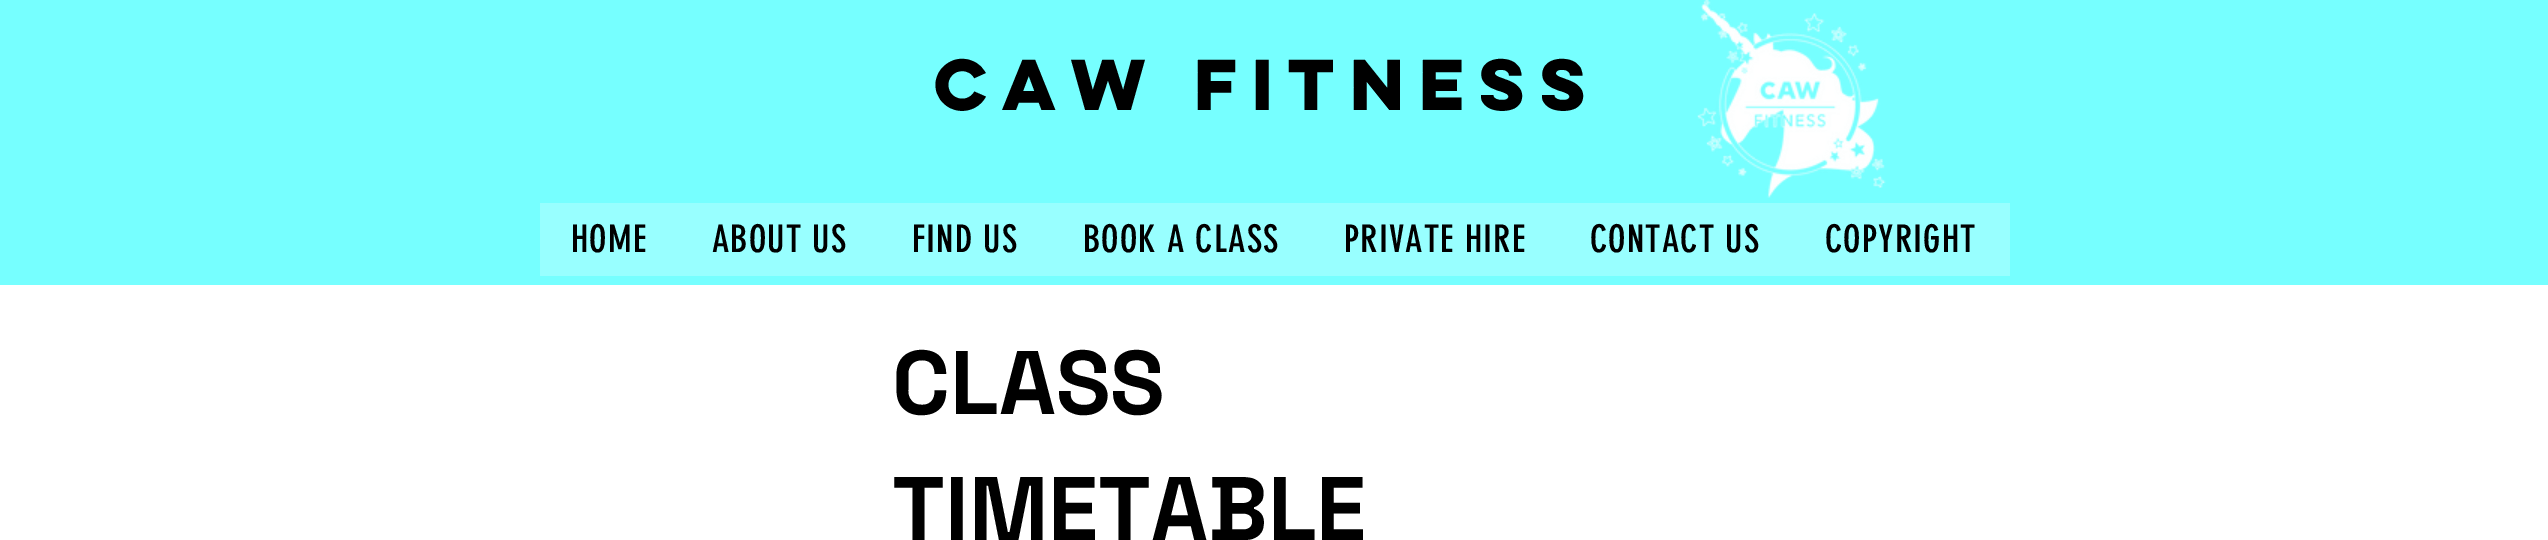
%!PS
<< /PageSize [2548 540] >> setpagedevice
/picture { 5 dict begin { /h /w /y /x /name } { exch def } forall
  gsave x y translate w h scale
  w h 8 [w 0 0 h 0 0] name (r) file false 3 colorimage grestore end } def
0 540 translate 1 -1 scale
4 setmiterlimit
1 setgray
0 0 2548 540 rectfill
0.463 1 1 setrgbcolor
0 0 2548 285 rectfill
/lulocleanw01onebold-Bold [64.5 0 0 -64.5 0 0] selectfont
0 setgray
934 110 moveto 0.6 0 (CAW FITNESS) ashow
(img1.rgb) 1697 0 189 198 picture
0.596 1 1 setrgbcolor
540 203 1470 73 rectfill
/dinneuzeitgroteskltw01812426-Regular [37.5 0 0 -37.5 0 0] selectfont
0 setgray
571 252 moveto 1.1 0 (HOME) ashow
712 252 moveto 1.1 0 (ABOUT US) ashow
912 252 moveto 1.1 0 (FIND US) ashow
1083 252 moveto 1.1 0 (BOOK A CLASS) ashow
1344 252 moveto 1.1 0 (PRIVATE HIRE) ashow
1590 252 moveto 1.1 0 (CONTACT US) ashow
1825 252 moveto 1.1 0 (COPYRIGHT) ashow
/SpaceGrotesk-Bold [90 0 0 -90 0 0] selectfont
892 414 moveto (CLASS) show
892 540 moveto (TIMETABLE) show
showpage
